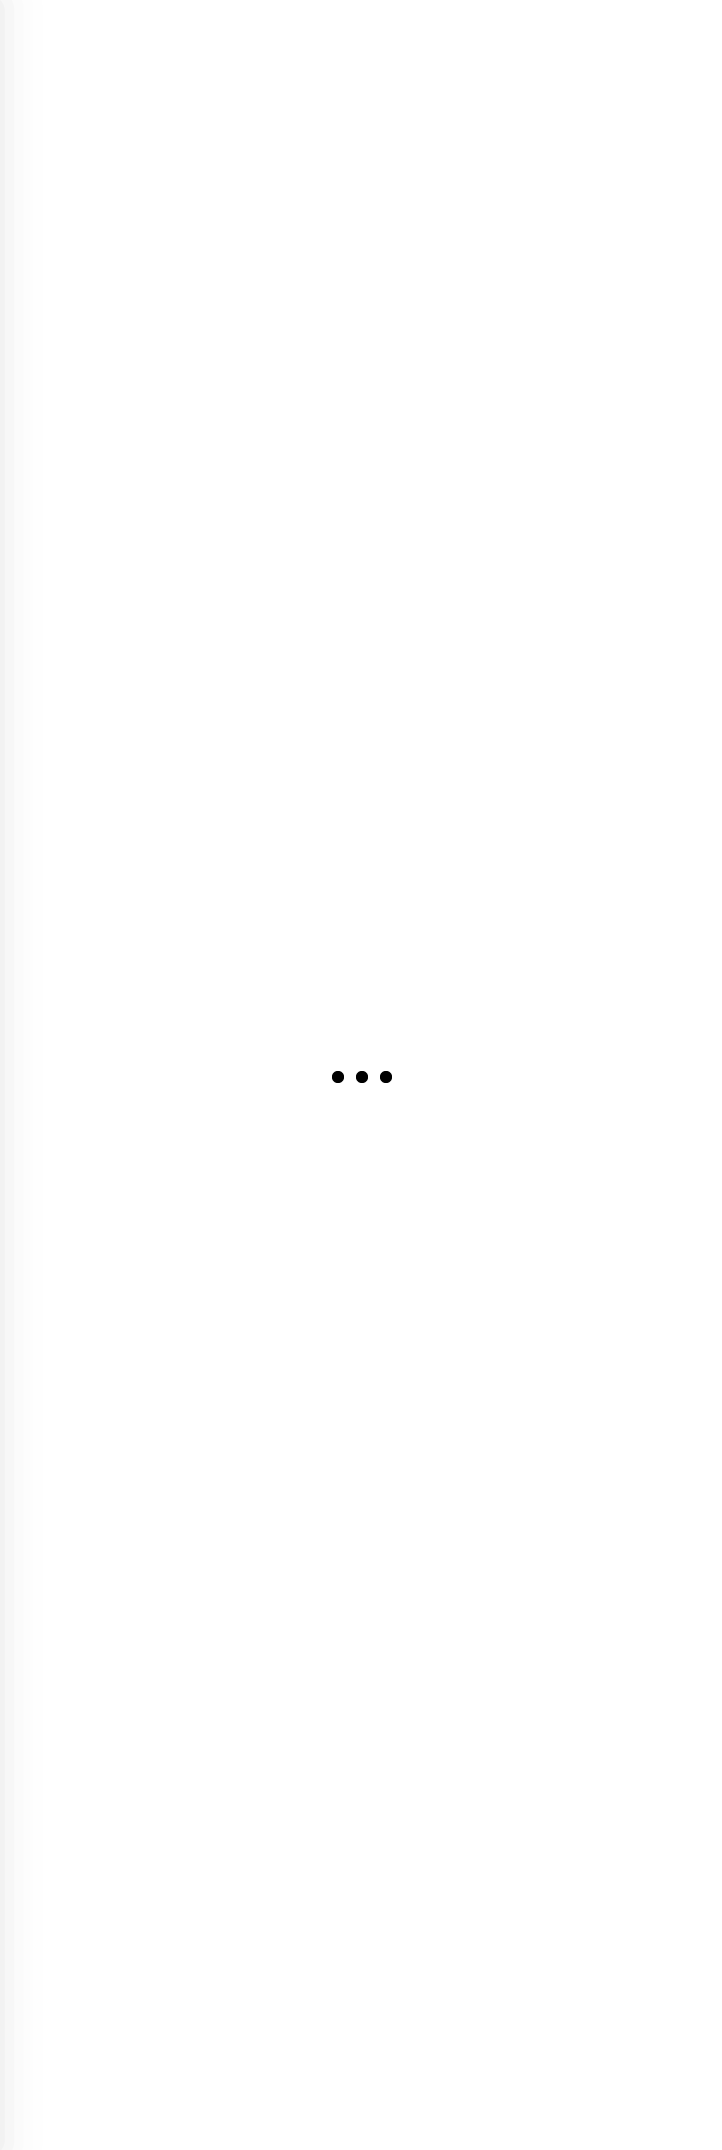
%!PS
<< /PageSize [722 2150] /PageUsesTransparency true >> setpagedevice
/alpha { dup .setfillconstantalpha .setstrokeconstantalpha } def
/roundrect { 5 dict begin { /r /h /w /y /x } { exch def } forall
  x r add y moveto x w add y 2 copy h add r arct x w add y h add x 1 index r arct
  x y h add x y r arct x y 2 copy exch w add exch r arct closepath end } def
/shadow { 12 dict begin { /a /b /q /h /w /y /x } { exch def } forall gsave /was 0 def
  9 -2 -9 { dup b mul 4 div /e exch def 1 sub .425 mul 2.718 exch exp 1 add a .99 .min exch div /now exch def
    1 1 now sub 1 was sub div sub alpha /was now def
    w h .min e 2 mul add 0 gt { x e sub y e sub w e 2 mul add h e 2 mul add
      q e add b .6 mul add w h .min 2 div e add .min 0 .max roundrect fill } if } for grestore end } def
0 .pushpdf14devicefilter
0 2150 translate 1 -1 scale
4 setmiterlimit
1 setgray
0 0 722 2150 rectfill
0 setgray
-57 0 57 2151 0 19 0.1 shadow
newpath 338 1077 6 0 360 arc closepath fill
newpath 362 1077 6 0 360 arc closepath fill
newpath 386 1077 6 0 360 arc closepath fill
.poppdf14devicefilter showpage
